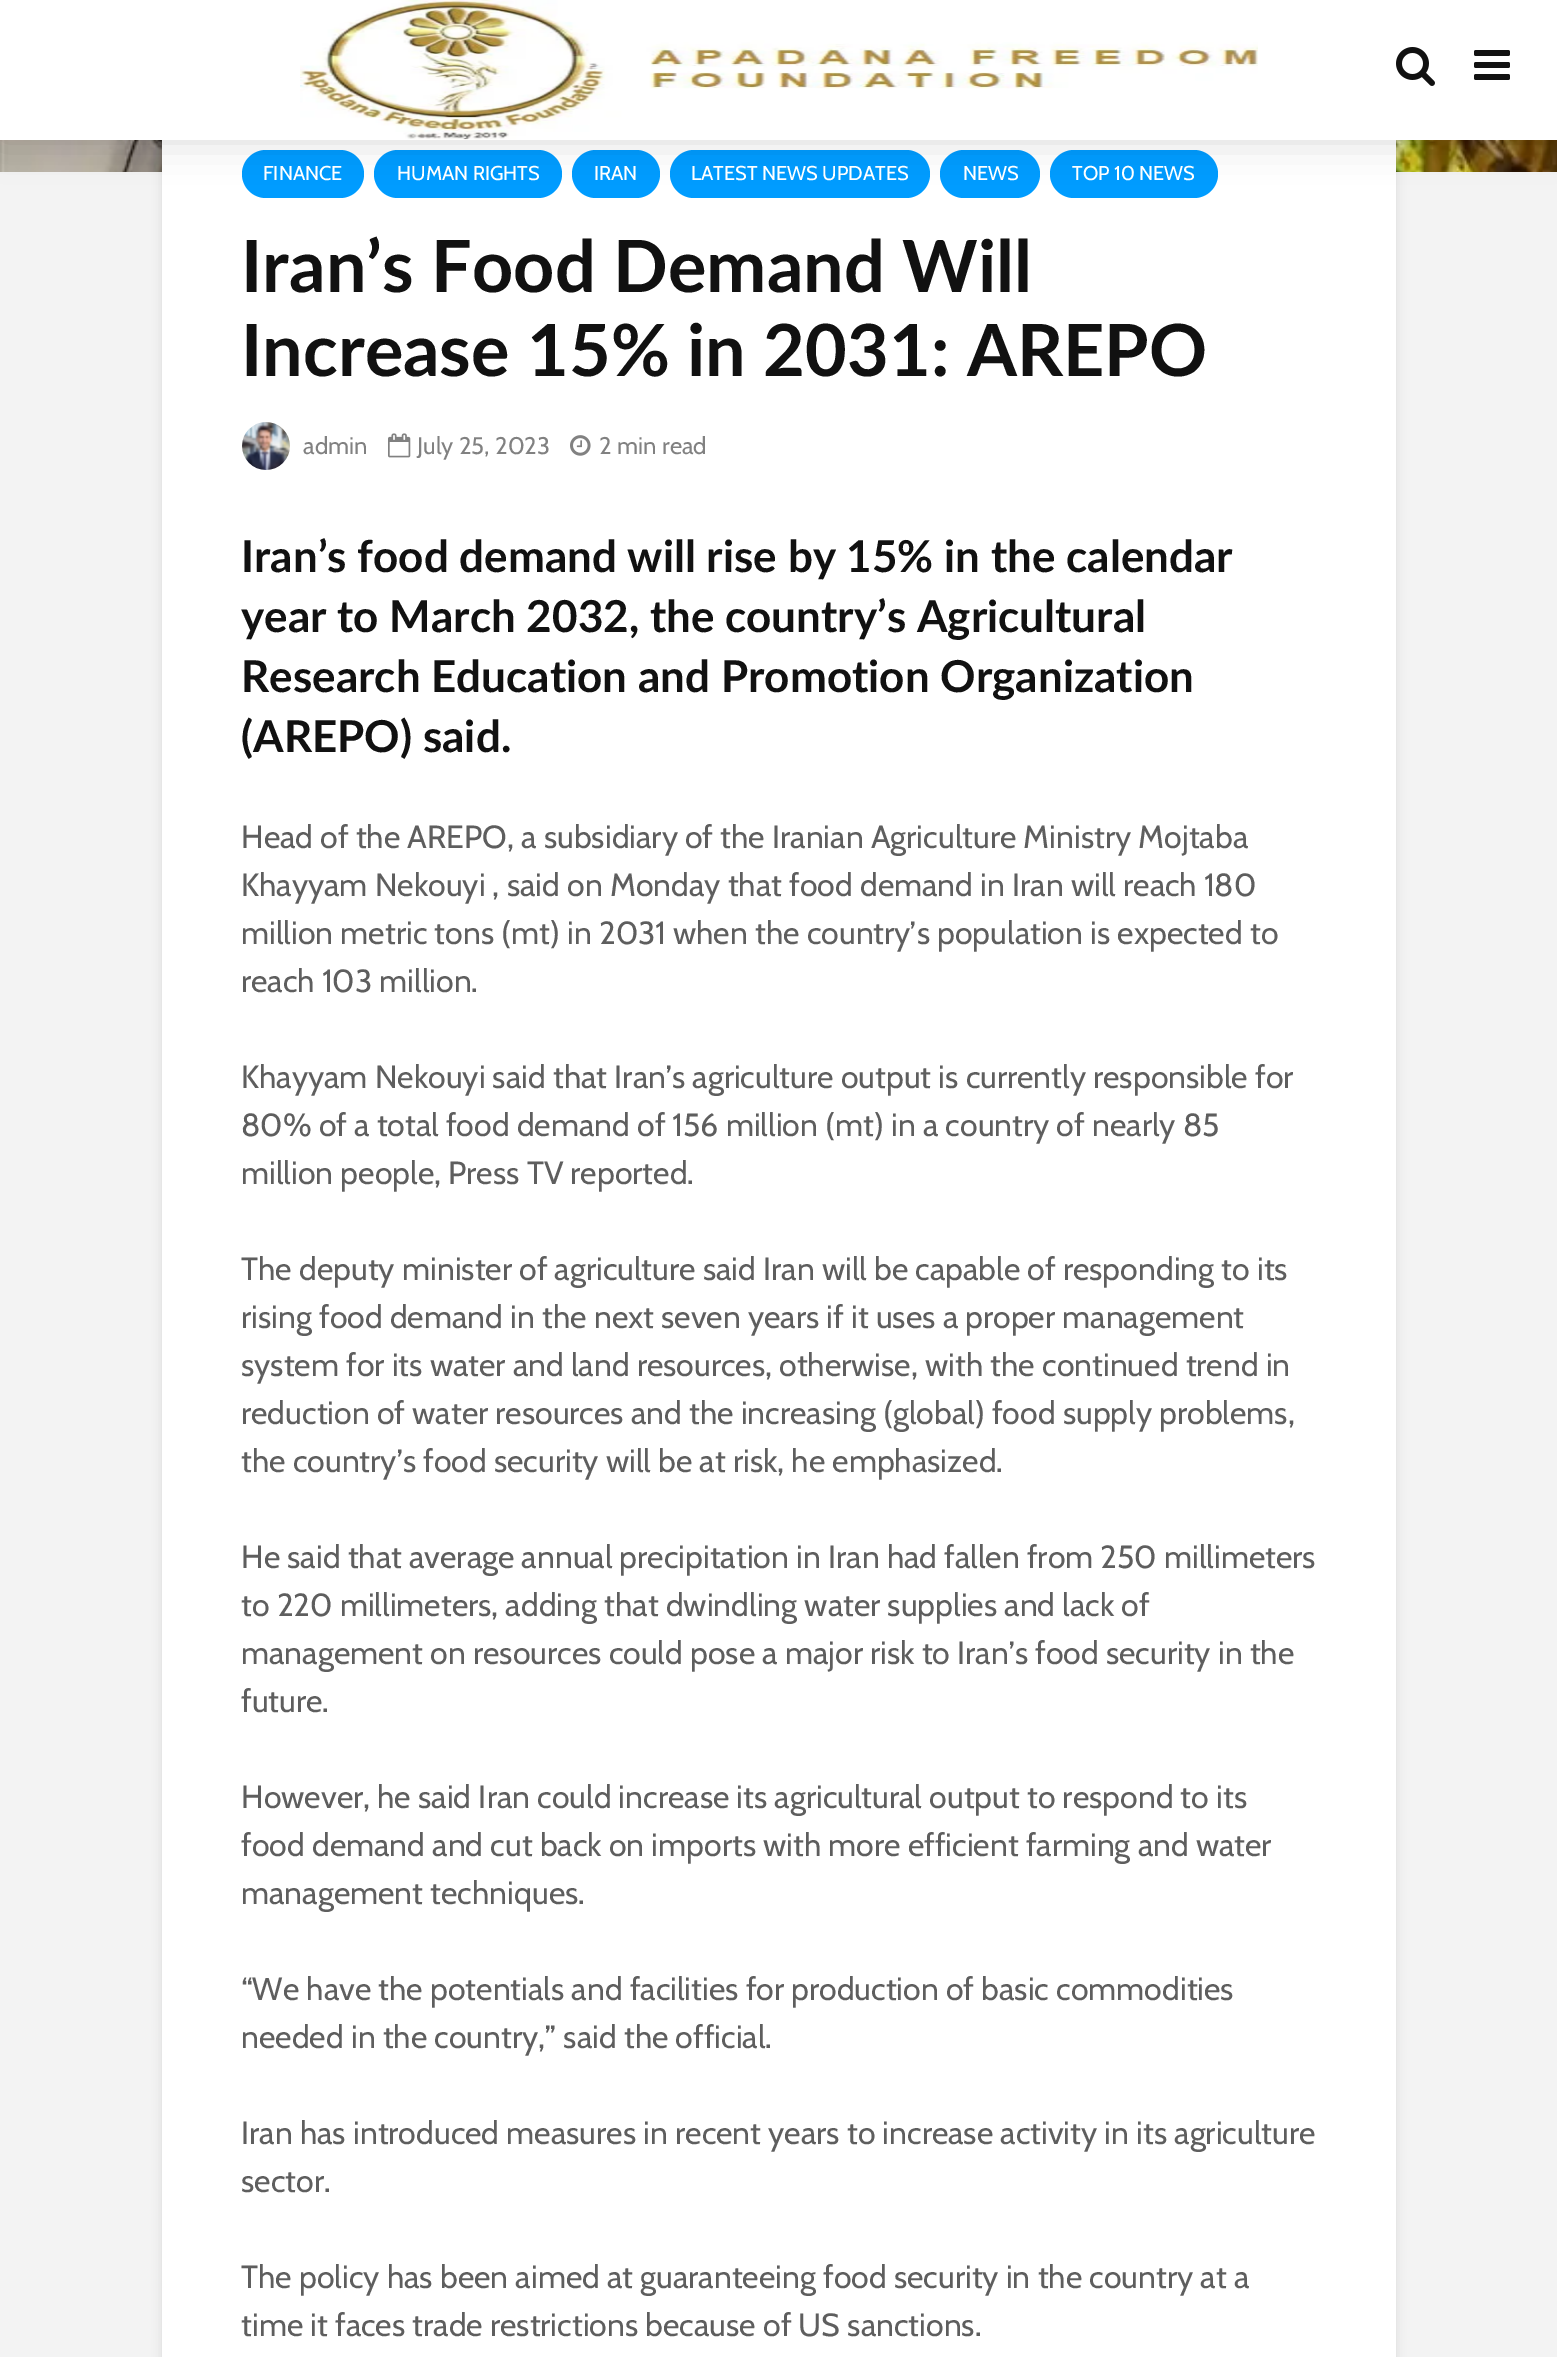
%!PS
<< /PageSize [1557 2357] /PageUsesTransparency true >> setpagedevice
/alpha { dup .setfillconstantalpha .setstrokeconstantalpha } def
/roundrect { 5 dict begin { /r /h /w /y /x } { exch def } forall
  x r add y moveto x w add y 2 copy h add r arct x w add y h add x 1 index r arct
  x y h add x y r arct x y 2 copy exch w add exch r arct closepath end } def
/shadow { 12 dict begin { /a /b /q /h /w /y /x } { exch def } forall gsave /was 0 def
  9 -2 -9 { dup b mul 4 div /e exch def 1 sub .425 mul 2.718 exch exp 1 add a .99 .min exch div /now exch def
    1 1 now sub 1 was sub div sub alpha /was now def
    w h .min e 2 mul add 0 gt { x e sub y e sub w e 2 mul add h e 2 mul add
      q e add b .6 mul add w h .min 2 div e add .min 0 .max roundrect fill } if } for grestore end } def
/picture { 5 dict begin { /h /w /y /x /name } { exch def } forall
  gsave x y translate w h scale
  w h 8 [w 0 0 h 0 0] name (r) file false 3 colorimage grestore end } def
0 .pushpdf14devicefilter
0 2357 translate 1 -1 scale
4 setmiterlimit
0.953 setgray
0 0 1557 2357 rectfill
(img4.rgb) 0 140 1557 32 picture
0 0.004 0.004 setrgbcolor
162 76 1234 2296 0 5 0.1 shadow
1 setgray
162 140 1234 2217 rectfill
0 0.612 1 setrgbcolor
242 150 122 48 24 roundrect fill
374 150 188 48 24 roundrect fill
572 150 88 48 24 roundrect fill
670 150 260 48 24 roundrect fill
940 150 100 48 24 roundrect fill
1050 150 168 48 24 roundrect fill
0 setgray
0 0 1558 140 0 20 0.15 shadow
1 setgray
0 0 1557 140 rectfill
(img1.rgb) 300 0 958 140 picture
(img2.rgb) 1396 47 39 39 picture
(img3.rgb) 1474 50 36 30 picture
/Cabin-Regular [20 0 0 -20 0 0] selectfont
263 180 moveto (FINANCE) show
397 180 moveto (HUMAN RIGHTS) show
594 180 moveto (IRAN) show
691 180 moveto (LATEST NEWS UPDATES) show
963 180 moveto (NEWS) show
1072 180 moveto (TOP 10 NEWS) show
/Lato-Bold [72 0 0 -72 0 0] selectfont
0.067 setgray
241 292 moveto (Iran’s Food Demand Will) show
241 376 moveto (Increase 15% in 2031: AREPO) show
(img5.rgb) 242 422 48 48 picture
/Cabin-Regular [24 0 0 -24 0 0] selectfont
0.506 setgray
303 454 moveto (admin) show
(img6.rgb) 388 433 23 25 picture
417 454 moveto (July 25, 2023) show
(img7.rgb) 570 435 21 21 picture
599 454 moveto (2 min read) show
/Lato-Bold [44 0 0 -44 0 0] selectfont
0.067 setgray
241 572 moveto (Iran’s food demand will rise by 15% in the calendar) show
241 632 moveto (year to March 2032, the country’s Agricultural) show
241 692 moveto (Research Education and Promotion Organization) show
241 752 moveto (\(AREPO\) said.) show
/Cabin-Regular [32 0 0 -32 0 0] selectfont
0.369 setgray
241 848 moveto (Head of the AREPO, a subsidiary of the Iranian Agriculture Ministry Mojtaba) show
241 896 moveto (Khayyam Nekouyi , said on Monday that food demand in Iran will reach 180) show
241 944 moveto (million metric tons \(mt\) in 2031 when the country’s population is expected to) show
241 992 moveto (reach 103 million.) show
241 1088 moveto (Khayyam Nekouyi said that Iran’s agriculture output is currently responsible for) show
241 1136 moveto (80% of a total food demand of 156 million \(mt\) in a country of nearly 85) show
241 1184 moveto (million people, Press TV reported.) show
241 1280 moveto (The deputy minister of agriculture said Iran will be capable of responding to its) show
241 1328 moveto (rising food demand in the next seven years if it uses a proper management) show
241 1376 moveto (system for its water and land resources, otherwise, with the continued trend in) show
241 1424 moveto (reduction of water resources and the increasing \(global\) food supply problems,) show
241 1472 moveto (the country’s food security will be at risk, he emphasized.) show
241 1568 moveto (He said that average annual precipitation in Iran had fallen from 250 millimeters) show
241 1616 moveto (to 220 millimeters, adding that dwindling water supplies and lack of) show
241 1664 moveto (management on resources could pose a major risk to Iran’s food security in the) show
241 1712 moveto (future.) show
241 1808 moveto (However, he said Iran could increase its agricultural output to respond to its) show
241 1856 moveto (food demand and cut back on imports with more efficient farming and water) show
241 1904 moveto (management techniques.) show
241 2000 moveto (“We have the potentials and facilities for production of basic commodities) show
241 2048 moveto (needed in the country,” said the official.) show
241 2144 moveto (Iran has introduced measures in recent years to increase activity in its agriculture) show
241 2192 moveto (sector.) show
241 2288 moveto (The policy has been aimed at guaranteeing food security in the country at a) show
241 2336 moveto (time it faces trade restrictions because of US sanctions.) show
.poppdf14devicefilter showpage
